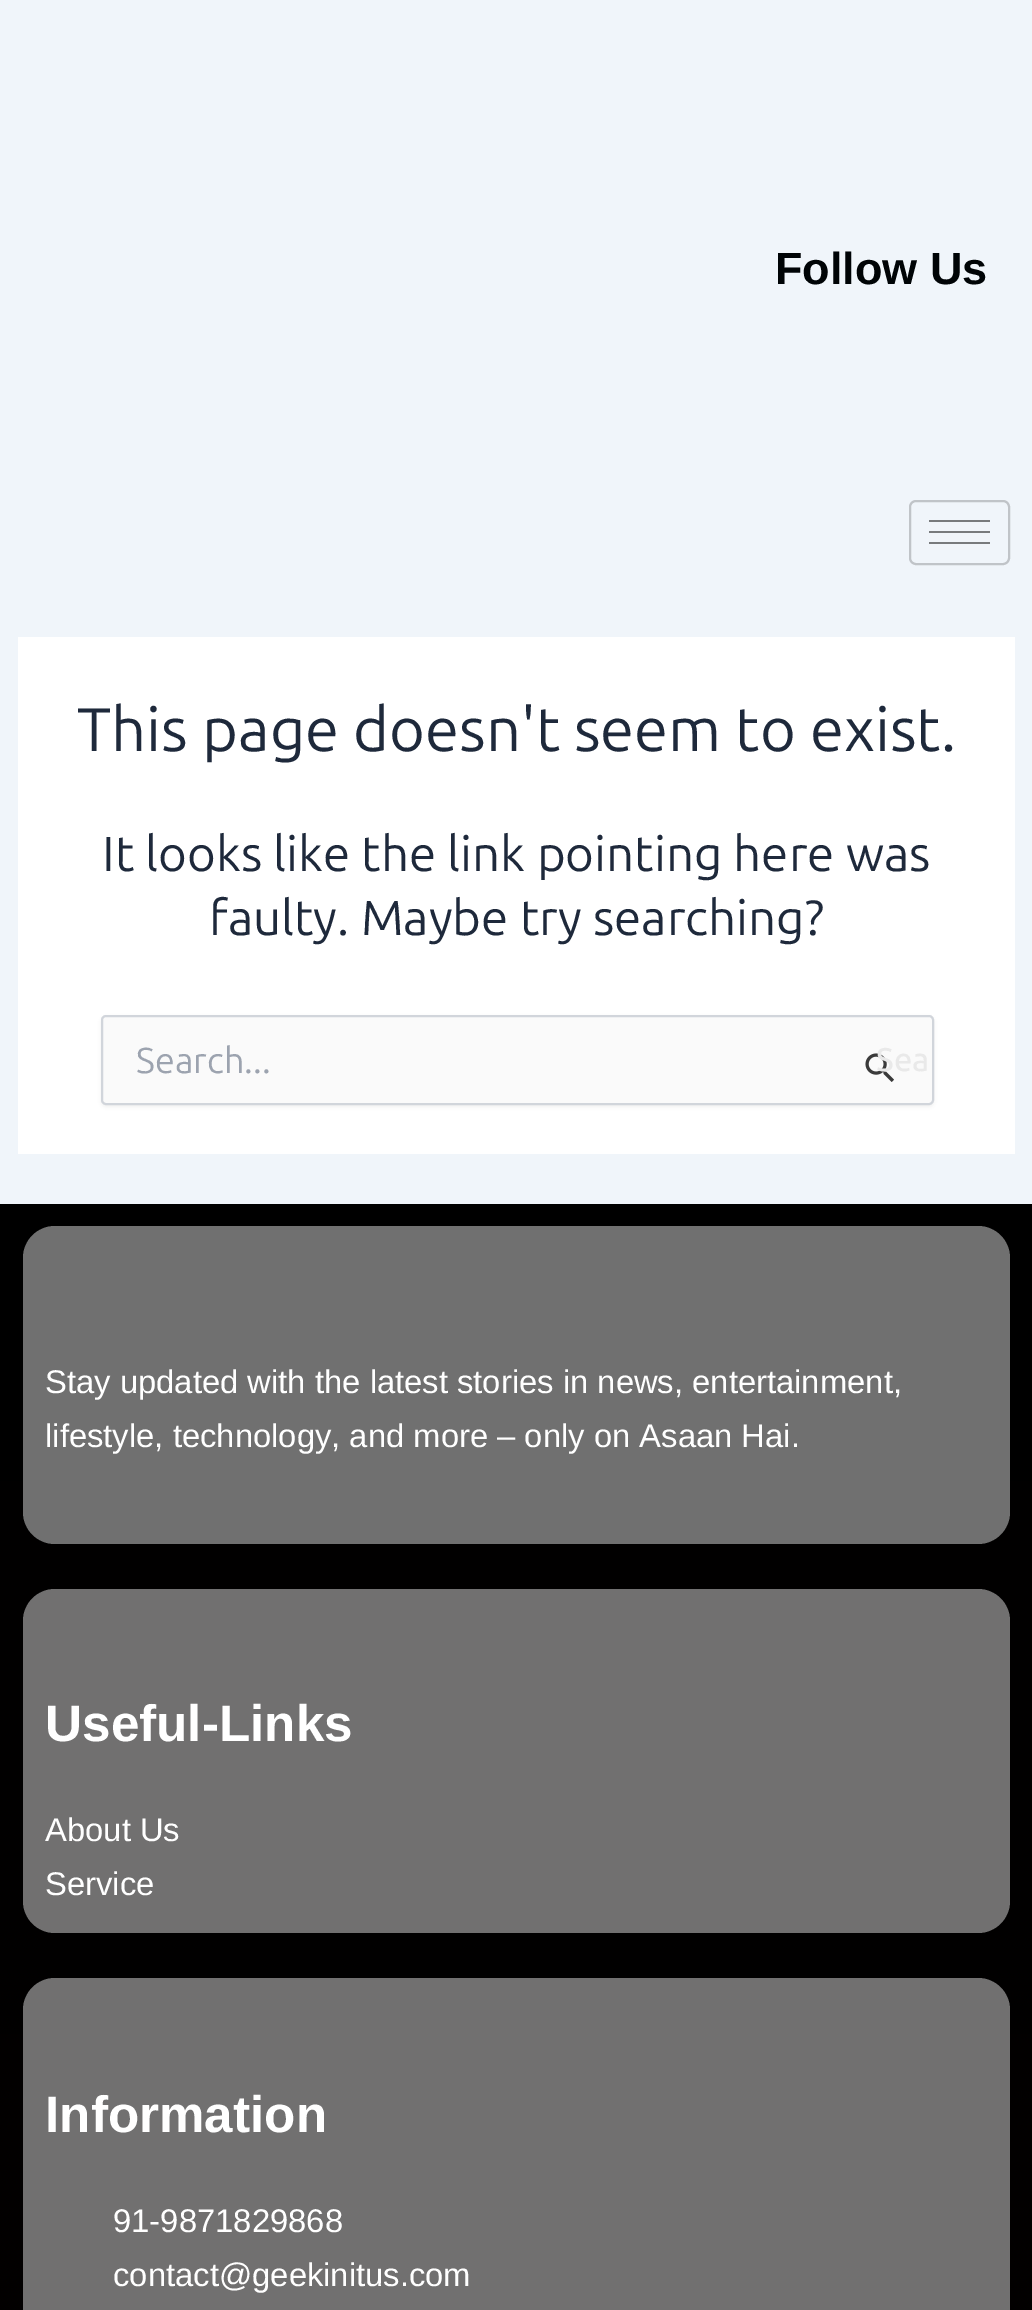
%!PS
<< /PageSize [1032 2310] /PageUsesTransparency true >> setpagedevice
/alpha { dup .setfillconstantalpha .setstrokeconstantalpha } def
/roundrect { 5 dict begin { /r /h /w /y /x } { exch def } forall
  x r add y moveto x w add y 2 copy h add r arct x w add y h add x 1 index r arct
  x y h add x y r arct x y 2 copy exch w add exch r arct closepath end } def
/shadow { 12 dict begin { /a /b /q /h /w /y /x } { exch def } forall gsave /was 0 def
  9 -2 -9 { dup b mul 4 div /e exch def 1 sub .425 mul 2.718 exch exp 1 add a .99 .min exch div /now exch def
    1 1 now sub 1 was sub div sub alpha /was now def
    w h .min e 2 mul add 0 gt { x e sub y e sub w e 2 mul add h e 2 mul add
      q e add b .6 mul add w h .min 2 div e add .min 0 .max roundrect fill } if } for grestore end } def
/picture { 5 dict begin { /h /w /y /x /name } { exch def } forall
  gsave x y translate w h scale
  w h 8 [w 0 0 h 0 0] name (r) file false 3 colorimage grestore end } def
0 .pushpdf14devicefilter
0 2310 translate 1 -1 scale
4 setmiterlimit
0.941 0.961 0.98 setrgbcolor
0 0 1032 2310 rectfill
/LiberationSans-Bold [45 0 0 -45 0 0] selectfont
0 0.016 0.024 setrgbcolor
775 284 moveto (Follow Us) show
0.2 alpha
0 setgray
2 setlinewidth
910 501 99 63 6 roundrect stroke
1 alpha
0.471 0.482 0.49 setrgbcolor
929 520 61 2 rectfill
929 531 61 2 rectfill
929 542 61 2 rectfill
1 setgray
18 637 997 517 rectfill
/Ubuntu-Regular [61.5 0 0 -61.5 0 0] selectfont
0.118 0.161 0.231 setrgbcolor
77 751 moveto (This page doesn't seem to exist.) show
/Ubuntu-Regular [49.25 0 0 -49.25 0 0] selectfont
102 871 moveto (It looks like the link pointing here was) show
209 935 moveto (faulty. Maybe try searching?) show
0 setgray
101 1017 833 90 5 2 0.05 shadow
0.98 setgray
102 1016 831 88 4 roundrect gsave fill grestore
0.82 0.835 0.859 setrgbcolor
stroke
/Ubuntu-Regular [36 0 0 -36 0 0] selectfont
0.612 0.639 0.686 setrgbcolor
136 1073 moveto (Search...) show
(img1.rgb) 865 1053 29 29 picture
/Ubuntu-Medium [32.8 0 0 -32.8 0 0] selectfont
0.914 setgray
876 1071 moveto (Sea) show
gsave newpath 0 1204 moveto 1032 1204 lineto 1032 2310 lineto 0 2310 lineto closepath clip newpath
<< /ShadingType 2 /ColorSpace /DeviceRGB /Coords [516 1204 516 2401] /Extend [true true] /Function << /FunctionType 2 /Domain [0 1] /C0 [0 0 0] /C1 [0.008 0 0] /N 1 >> >> shfill grestore
0.439 setgray
23 1226 987 318 32 roundrect fill
/LiberationSans-Regular [32.8 0 0 -32.8 0 0] selectfont
1 setgray
45 1393 moveto (Stay updated with the latest stories in news, entertainment,) show
45 1447 moveto (lifestyle, technology, and more – only on Asaan Hai.) show
0.443 0.439 0.439 setrgbcolor
23 1589 987 344 32 roundrect fill
/LiberationSans-Bold [51.25 0 0 -51.25 0 0] selectfont
1 setgray
45 1741 moveto (Useful-Links) show
/LiberationSans-Regular [32.8 0 0 -32.8 0 0] selectfont
45 1841 moveto (About Us) show
45 1895 moveto (Service) show
0.443 0.439 0.439 setrgbcolor
23 1978 987 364 32 roundrect fill
/LiberationSans-Bold [51.25 0 0 -51.25 0 0] selectfont
1 setgray
45 2132 moveto (Information) show
/LiberationSans-Regular [32.8 0 0 -32.8 0 0] selectfont
113 2232 moveto (91-9871829868) show
113 2286 moveto (contact@geekinitus.com) show
.poppdf14devicefilter showpage
